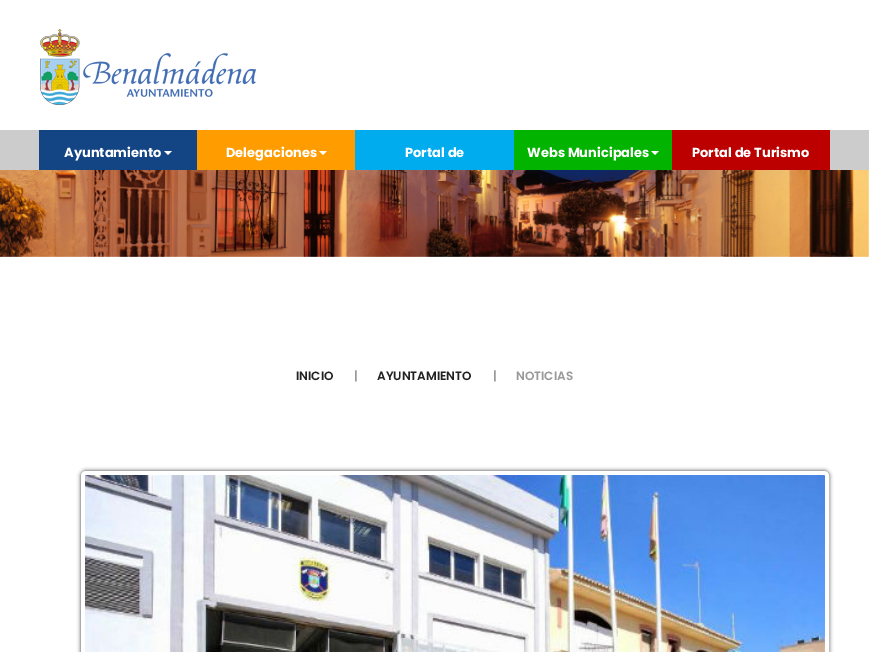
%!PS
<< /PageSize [869 652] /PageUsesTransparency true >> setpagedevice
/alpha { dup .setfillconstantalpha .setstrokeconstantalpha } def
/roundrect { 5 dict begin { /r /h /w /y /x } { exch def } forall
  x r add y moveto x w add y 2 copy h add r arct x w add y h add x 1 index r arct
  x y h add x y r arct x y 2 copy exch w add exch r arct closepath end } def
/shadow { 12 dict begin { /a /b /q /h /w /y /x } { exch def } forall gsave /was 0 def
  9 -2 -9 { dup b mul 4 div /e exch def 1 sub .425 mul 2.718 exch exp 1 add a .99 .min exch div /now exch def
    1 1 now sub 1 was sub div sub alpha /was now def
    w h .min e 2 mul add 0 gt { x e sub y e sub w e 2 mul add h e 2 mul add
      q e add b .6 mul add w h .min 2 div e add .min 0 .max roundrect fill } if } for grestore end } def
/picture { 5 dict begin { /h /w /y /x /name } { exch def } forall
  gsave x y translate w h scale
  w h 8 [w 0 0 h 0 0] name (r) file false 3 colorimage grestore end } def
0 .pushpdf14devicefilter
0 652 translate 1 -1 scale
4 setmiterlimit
1 setgray
0 0 869 652 rectfill
(img1.rgb) 40 29 216 76 picture
0.8 setgray
0 130 869 40 rectfill
0.075 0.267 0.518 setrgbcolor
39 130 158 40 rectfill
/Poppins-Bold [13 0 0 -13 0 0] selectfont
1 setgray
64 157 moveto (Ayuntamiento) show
newpath 164 151 moveto 172 151 lineto 168 155 lineto closepath fill
1 0.612 0 setrgbcolor
197 130 158 40 rectfill
1 setgray
226 157 moveto (Delegaciones) show
newpath 319 151 moveto 327 151 lineto 323 155 lineto closepath fill
0 0.675 0.933 setrgbcolor
355 130 159 40 rectfill
1 setgray
405 157 moveto (Portal de) show
0.008 0.702 0 setrgbcolor
514 130 158 40 rectfill
1 setgray
527 157 moveto (Webs Municipales) show
newpath 651 151 moveto 659 151 lineto 655 155 lineto closepath fill
0.737 0 0 setrgbcolor
672 130 158 40 rectfill
1 setgray
692 157 moveto (Portal de Turismo) show
(img2.rgb) 0 170 869 87 picture
/Poppins-SemiBold [12 0 0 -12 0 0] selectfont
0.133 setgray
296 380 moveto (INICIO) show
0.6 setgray
354 380 moveto (|) show
0.133 setgray
377 380 moveto (AYUNTAMIENTO) show
0.6 setgray
493 380 moveto (|) show
516 380 moveto (NOTICIAS) show
0 setgray
81 471 748 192 5 2 0.8 shadow
1 setgray
4 setlinewidth
83 473 744 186 3 roundrect stroke
(img3.rgb) 85 475 740 177 picture
.poppdf14devicefilter showpage
